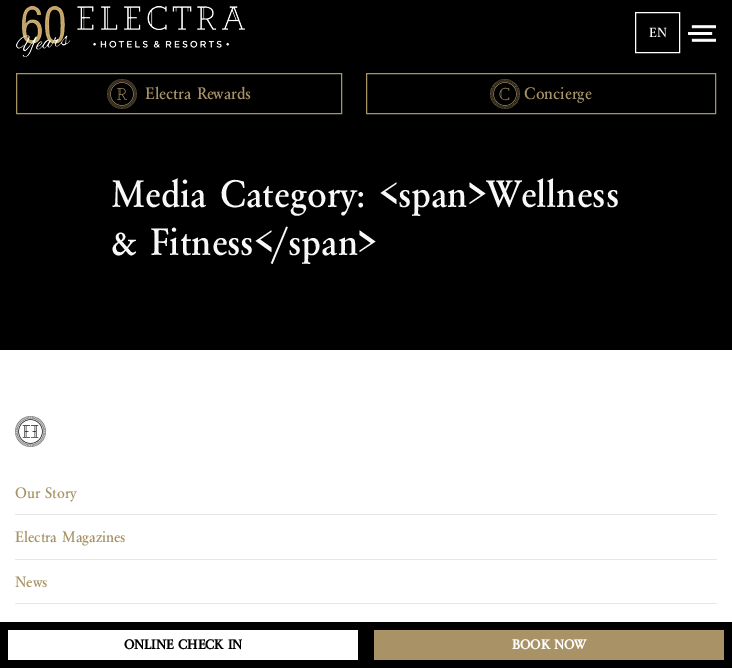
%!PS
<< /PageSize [732 668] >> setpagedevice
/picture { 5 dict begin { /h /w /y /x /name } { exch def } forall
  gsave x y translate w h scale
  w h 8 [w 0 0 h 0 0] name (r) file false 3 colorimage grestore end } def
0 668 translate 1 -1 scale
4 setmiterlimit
1 setgray
0 0 732 668 rectfill
0 setgray
0 0 732 350 rectfill
(img1.rgb) 16 6 229 51 picture
1 setgray
635.5 12.5 44 40 rectstroke
/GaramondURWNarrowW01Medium-Medium [14 0 0 -14 0 0] selectfont
649 37 moveto (EN) show
(img2.rgb) 688 25 28 17 picture
0.663 0.576 0.4 setrgbcolor
16.5 73.5 325 40 rectstroke
(img3.rgb) 107 79 30 30 picture
/GaramondURWNarrowW01Medium-Medium [17.5 0 0 -17.5 0 0] selectfont
145 99 moveto (Electra Rewards) show
366.5 73.5 349 40 rectstroke
(img4.rgb) 490 79 30 30 picture
524 99 moveto (Concierge) show
/GaramondURWNarrowW01Medium-Medium [40 0 0 -40 0 0] selectfont
0.973 setgray
111 207 moveto (Media Category: <span>Wellness) show
111 255 moveto (& Fitness</span>) show
(img5.rgb) 15 416 31 31 picture
0.902 setgray
15 514 702 1 rectfill
/GaramondURWNarrowW01Medium-Medium [16 0 0 -16 0 0] selectfont
0.663 0.576 0.4 setrgbcolor
15 498 moveto (Our Story) show
0.902 setgray
15 559 702 1 rectfill
0.663 0.576 0.4 setrgbcolor
15 542 moveto (Electra Magazines) show
0.902 setgray
15 603 702 1 rectfill
0.663 0.576 0.4 setrgbcolor
15 587 moveto (News) show
0 setgray
0 622 732 46 rectfill
1 setgray
8 630 350 30 rectfill
/GaramondURWNarrowW01Medium-Bold [14 0 0 -14 0 0] selectfont
0 setgray
124 649 moveto (ONLINE CHECK IN) show
0.663 0.576 0.4 setrgbcolor
374 630 350 30 rectfill
1 setgray
512 649 moveto (BOOK NOW) show
showpage
